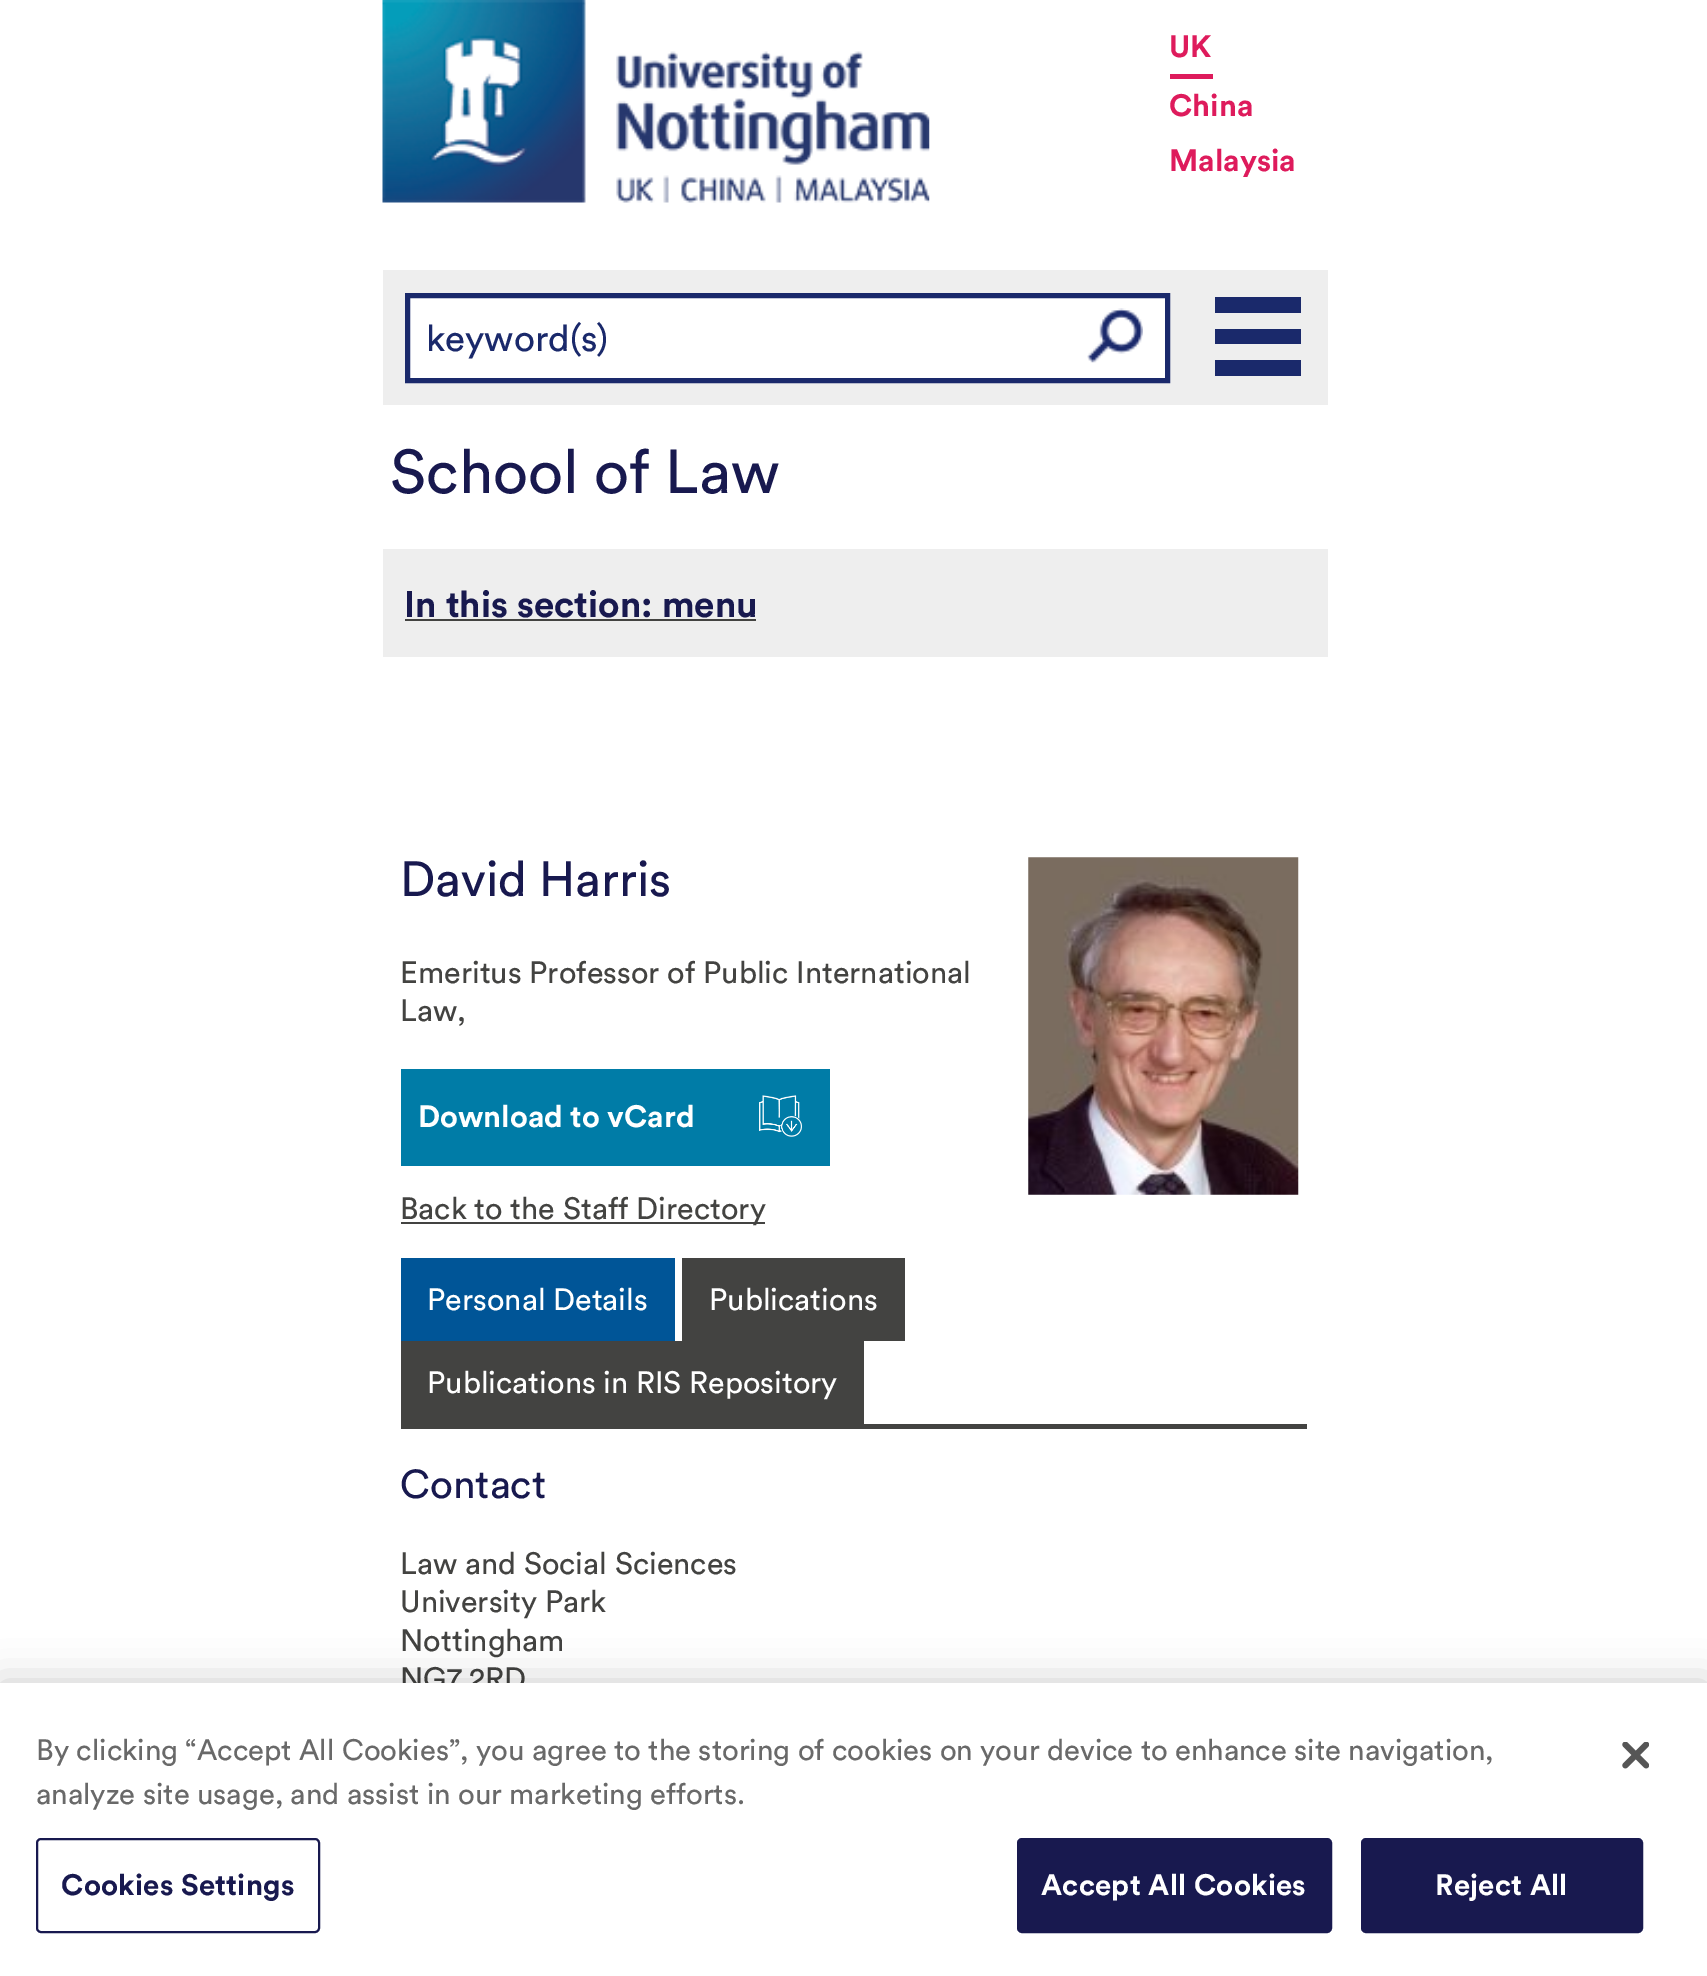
%!PS
<< /PageSize [1707 1976] /PageUsesTransparency true >> setpagedevice
/alpha { dup .setfillconstantalpha .setstrokeconstantalpha } def
/roundrect { 5 dict begin { /r /h /w /y /x } { exch def } forall
  x r add y moveto x w add y 2 copy h add r arct x w add y h add x 1 index r arct
  x y h add x y r arct x y 2 copy exch w add exch r arct closepath end } def
/shadow { 12 dict begin { /a /b /q /h /w /y /x } { exch def } forall gsave /was 0 def
  9 -2 -9 { dup b mul 4 div /e exch def 1 sub .425 mul 2.718 exch exp 1 add a .99 .min exch div /now exch def
    1 1 now sub 1 was sub div sub alpha /was now def
    w h .min e 2 mul add 0 gt { x e sub y e sub w e 2 mul add h e 2 mul add
      q e add b .6 mul add w h .min 2 div e add .min 0 .max roundrect fill } if } for grestore end } def
/picture { 5 dict begin { /h /w /y /x /name } { exch def } forall
  gsave x y translate w h scale
  w h 8 [w 0 0 h 0 0] name (r) file false 3 colorimage grestore end } def
0 .pushpdf14devicefilter
0 1976 translate 1 -1 scale
4 setmiterlimit
1 setgray
0 0 1707 1976 rectfill
(img1.rgb) 382 0 548 203 picture
0.871 0.106 0.361 setrgbcolor
1170 74 43 5 rectfill
/Circular-Bold [30.6 0 0 -30.6 0 0] selectfont
1169 57 moveto (UK) show
1169 116 moveto (China) show
1169 171 moveto (Malaysia) show
0.933 setgray
383 270 945 135 rectfill
1 setgray
newpath 407.5 295.5 moveto 1167.5 295.5 lineto 1167.5 380.5 lineto 407.5 380.5 lineto closepath gsave fill grestore
0.102 0.161 0.42 setrgbcolor
5 setlinewidth
stroke
/Circular-Regular [36.75 0 0 -36.75 0 0] selectfont
426 351 moveto (keyword\(s\)) show
(img2.rgb) 1087 308 56 55 picture
1215 297 86 16 rectfill
1215 329 86 15 rectfill
1215 360 86 16 rectfill
/Circular-Regular [61.25 0 0 -61.25 0 0] selectfont
0.094 0.098 0.31 setrgbcolor
390 493 moveto (School of Law) show
0.933 setgray
383 549 945 108 rectfill
/Circular-Bold [36.75 0 0 -36.75 0 0] selectfont
0.094 0.098 0.31 setrgbcolor
404 617 moveto (In this section: menu) show
0.263 0.263 0.255 setrgbcolor
405 619 351 2 rectfill
/Circular-Regular [49 0 0 -49 0 0] selectfont
0.094 0.098 0.31 setrgbcolor
400 896 moveto (David Harris) show
(img3.rgb) 1028 857 271 338 picture
/Circular-Regular [30.6 0 0 -30.6 0 0] selectfont
0.263 0.263 0.255 setrgbcolor
400 983 moveto (Emeritus Professor of Public International) show
400 1021 moveto (Law,) show
0 0.486 0.655 setrgbcolor
401 1069 429 97 rectfill
(img4.rgb) 759 1095 43 42 picture
/Circular-Bold [30.6 0 0 -30.6 0 0] selectfont
1 setgray
418 1127 moveto (Download to vCard) show
0.263 0.263 0.255 setrgbcolor
401 1222 364 2 rectfill
/Circular-Regular [30.6 0 0 -30.6 0 0] selectfont
400 1219 moveto (Back to the Staff Directory) show
401 1424 906 5 rectfill
0 0.333 0.592 setrgbcolor
401 1258 274 83 rectfill
1 setgray
427 1310 moveto (Personal Details) show
0.263 0.263 0.255 setrgbcolor
682 1258 223 83 rectfill
1 setgray
709 1310 moveto (Publications) show
0.263 0.263 0.255 setrgbcolor
401 1341 463 83 rectfill
1 setgray
427 1393 moveto (Publications in RIS Repository) show
/Circular-Regular [40 0 0 -40 0 0] selectfont
0.094 0.098 0.31 setrgbcolor
400 1498 moveto (Contact) show
/Circular-Regular [30.6 0 0 -30.6 0 0] selectfont
0.263 0.263 0.255 setrgbcolor
400 1574 moveto (Law and Social Sciences) show
400 1612 moveto (University Park) show
400 1651 moveto (Nottingham) show
400 1689 moveto (NG7 2RD) show
0 setgray
0 1683 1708 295 0 20 0.2 shadow
1 setgray
0 1683 1707 293 rectfill
/Circular-Regular [29.25 0 0 -29.25 0 0] selectfont
0.412 setgray
36 1760 moveto (By clicking “Accept All Cookies”, you agree to the storing of cookies on your device to enhance site navigation,) show
36 1804 moveto (analyze site usage, and assist in our marketing efforts.) show
0.094 0.098 0.31 setrgbcolor
2 setlinewidth
37 1839 282 93 4 roundrect stroke
/Circular-Bold [29.25 0 0 -29.25 0 0] selectfont
61 1895 moveto 0.25 0 (Cookies Settings) ashow
1018 1839 313 93 4 roundrect gsave fill grestore
stroke
1 setgray
1041 1895 moveto 0.25 0 (Accept All Cookies) ashow
0.094 0.098 0.31 setrgbcolor
1362 1839 280 93 4 roundrect gsave fill grestore
stroke
1 setgray
1435 1895 moveto 0.25 0 (Reject All) ashow
(img5.rgb) 1622 1742 27 27 picture
.poppdf14devicefilter showpage
